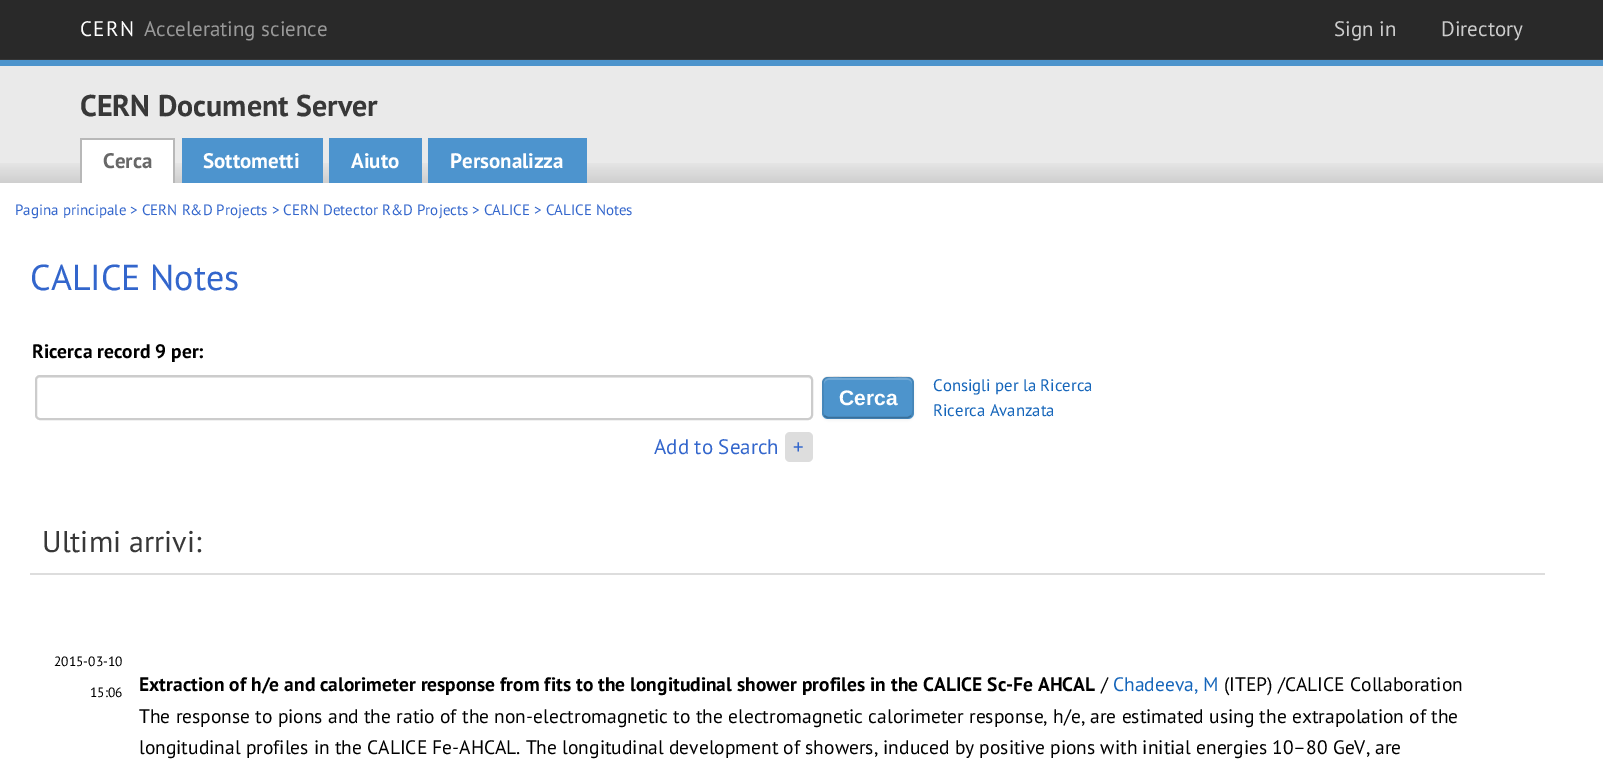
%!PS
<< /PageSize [1603 774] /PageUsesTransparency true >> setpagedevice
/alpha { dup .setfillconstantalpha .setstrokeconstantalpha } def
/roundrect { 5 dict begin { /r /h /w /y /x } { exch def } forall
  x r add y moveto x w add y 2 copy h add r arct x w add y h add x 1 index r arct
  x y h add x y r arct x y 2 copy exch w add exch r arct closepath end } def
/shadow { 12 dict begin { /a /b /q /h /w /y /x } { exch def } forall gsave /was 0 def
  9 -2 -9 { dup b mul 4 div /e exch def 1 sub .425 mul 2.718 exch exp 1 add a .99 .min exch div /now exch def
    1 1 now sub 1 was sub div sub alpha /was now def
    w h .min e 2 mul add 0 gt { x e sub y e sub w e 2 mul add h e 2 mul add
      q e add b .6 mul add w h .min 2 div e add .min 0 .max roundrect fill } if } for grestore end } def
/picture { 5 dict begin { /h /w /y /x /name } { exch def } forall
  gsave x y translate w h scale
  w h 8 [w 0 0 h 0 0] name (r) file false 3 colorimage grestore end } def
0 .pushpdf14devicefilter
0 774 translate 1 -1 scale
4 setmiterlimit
1 setgray
0 0 1603 774 rectfill
0.161 setgray
0 0 1603 59 rectfill
0.208 setgray
0 59 1603 1 rectfill
/PTSans-Regular [21 0 0 -21 0 0] selectfont
1 setgray
80 36 moveto 1.5 0 (CERN) ashow
0.6 setgray
144 36 moveto (Accelerating science) show
0.8 setgray
1334 36 moveto (Sign in) show
1441 36 moveto (Directory) show
0.918 setgray
0 66 1603 117 rectfill
(img1.rgb) 0 163 1603 20 picture
0.302 0.58 0.8 setrgbcolor
0 60 1603 6 rectfill
/PTSans-Bold [30 0 0 -30 0 0] selectfont
0.22 setgray
80 116 moveto (CERN Document Server) show
1 setgray
82 140 91 43 rectfill
0.722 setgray
80 138 94 2 rectfill
173 138 2 45 rectfill
80 138 2 45 rectfill
/PTSans-Bold [21 0 0 -21 0 0] selectfont
0.408 setgray
103 168 moveto (Cerca) show
0.302 0.58 0.808 setrgbcolor
182 138 141 45 rectfill
1 setgray
203 168 moveto (Sottometti) show
0.302 0.58 0.808 setrgbcolor
329 138 93 45 rectfill
1 setgray
351 168 moveto (Aiuto) show
0.302 0.58 0.808 setrgbcolor
428 138 159 45 rectfill
1 setgray
450 168 moveto (Personalizza) show
/PTSans-Regular [15 0 0 -15 0 0] selectfont
0.2 0.4 0.8 setrgbcolor
15 215 moveto (Pagina principale > CERN R&D Projects > CERN Detector R&D Projects > CALICE > CALICE Notes) show
/PTSans-Regular [36 0 0 -36 0 0] selectfont
30 290 moveto (CALICE Notes) show
/PTSans-Bold [19.5 0 0 -19.5 0 0] selectfont
0 setgray
32 358 moveto (Ricerca record 9 per:) show
0.925 setgray
newpath 39 378 moveto 808 378 lineto 810 378 812 379 812 381 curveto 812 379 811 377 809 377 curveto 39 377 lineto 37 377 36 379 36 381 curveto 36 379 37 378 39 378 curveto closepath fill
0.8 setgray
2 setlinewidth
36 376 776 43 4 roundrect stroke
0 setgray
822 378 92 42 6 1.5 0.05 shadow
0.302 0.58 0.8 setrgbcolor
822 377 92 42 6 roundrect fill
0.443 0.663 0.839 setrgbcolor
newpath 828 380 moveto 908 380 lineto 910 380 912 382 912 384 curveto 912 375 900 378 894 378 curveto 842 378 lineto 836 378 824 375 824 384 curveto 824 382 826 380 828 380 curveto closepath fill
0.227 0.435 0.6 setrgbcolor
1.5 setlinewidth
newpath 911 416 moveto 908 417.5 lineto 827.5 417.5 lineto 824.5 416 lineto stroke
0.1 alpha
0 setgray
newpath 824.5 416 moveto 822 414 823 410.5 823 407.5 curveto 823 397.5 lineto 823 375.5 819.5 377 841 377 curveto 894 377 lineto 916 377 913 375.5 913 397.5 curveto 913 407.5 lineto 913 410.5 913.5 414 911 416 curveto stroke
/LiberationSans-Bold [21 0 0 -21 0 0] selectfont
1 alpha
1 setgray
839 405 moveto (Cerca) show
/PTSans-Regular [16.75 0 0 -16.75 0 0] selectfont
0.082 0.396 0.729 setrgbcolor
933 391 moveto (Consigli per la Ricerca) show
933 416 moveto (Ricerca Avanzata) show
/PTSans-Regular [21 0 0 -21 0 0] selectfont
0.2 0.4 0.8 setrgbcolor
654 454 moveto (Add to Search) show
0.867 setgray
785 432 28 30 5 roundrect fill
0.2 0.4 0.8 setrgbcolor
793 454 moveto (+) show
0.867 setgray
30 573 1515 2 rectfill
/PTSans-Regular [30 0 0 -30 0 0] selectfont
0.22 setgray
42 552 moveto (Ultimi arrivi:) show
/PTSans-Regular [13.5 0 0 -13.5 0 0] selectfont
0 setgray
54 666 moveto (2015-03-10) show
90 697 moveto (15:06) show
/PTSans-Bold [19.5 0 0 -19.5 0 0] selectfont
139 691 moveto (Extraction of h/e and calorimeter response from fits to the longitudinal shower profiles in the CALICE Sc-Fe AHCAL) show
/PTSans-Regular [19.5 0 0 -19.5 0 0] selectfont
1101 691 moveto (/) show
0.082 0.396 0.729 setrgbcolor
1113 691 moveto (Chadeeva, M) show
0 setgray
1224 691 moveto (\(ITEP\) /CALICE Collaboration) show
139 723 moveto (The response to pions and the ratio of the non-electromagnetic to the electromagnetic calorimeter response, h/e, are estimated using the extrapolation of the) show
139 754 moveto (longitudinal profiles in the CALICE Fe-AHCAL. The longitudinal development of showers, induced by positive pions with initial energies 10–80 GeV, are) show
.poppdf14devicefilter showpage
